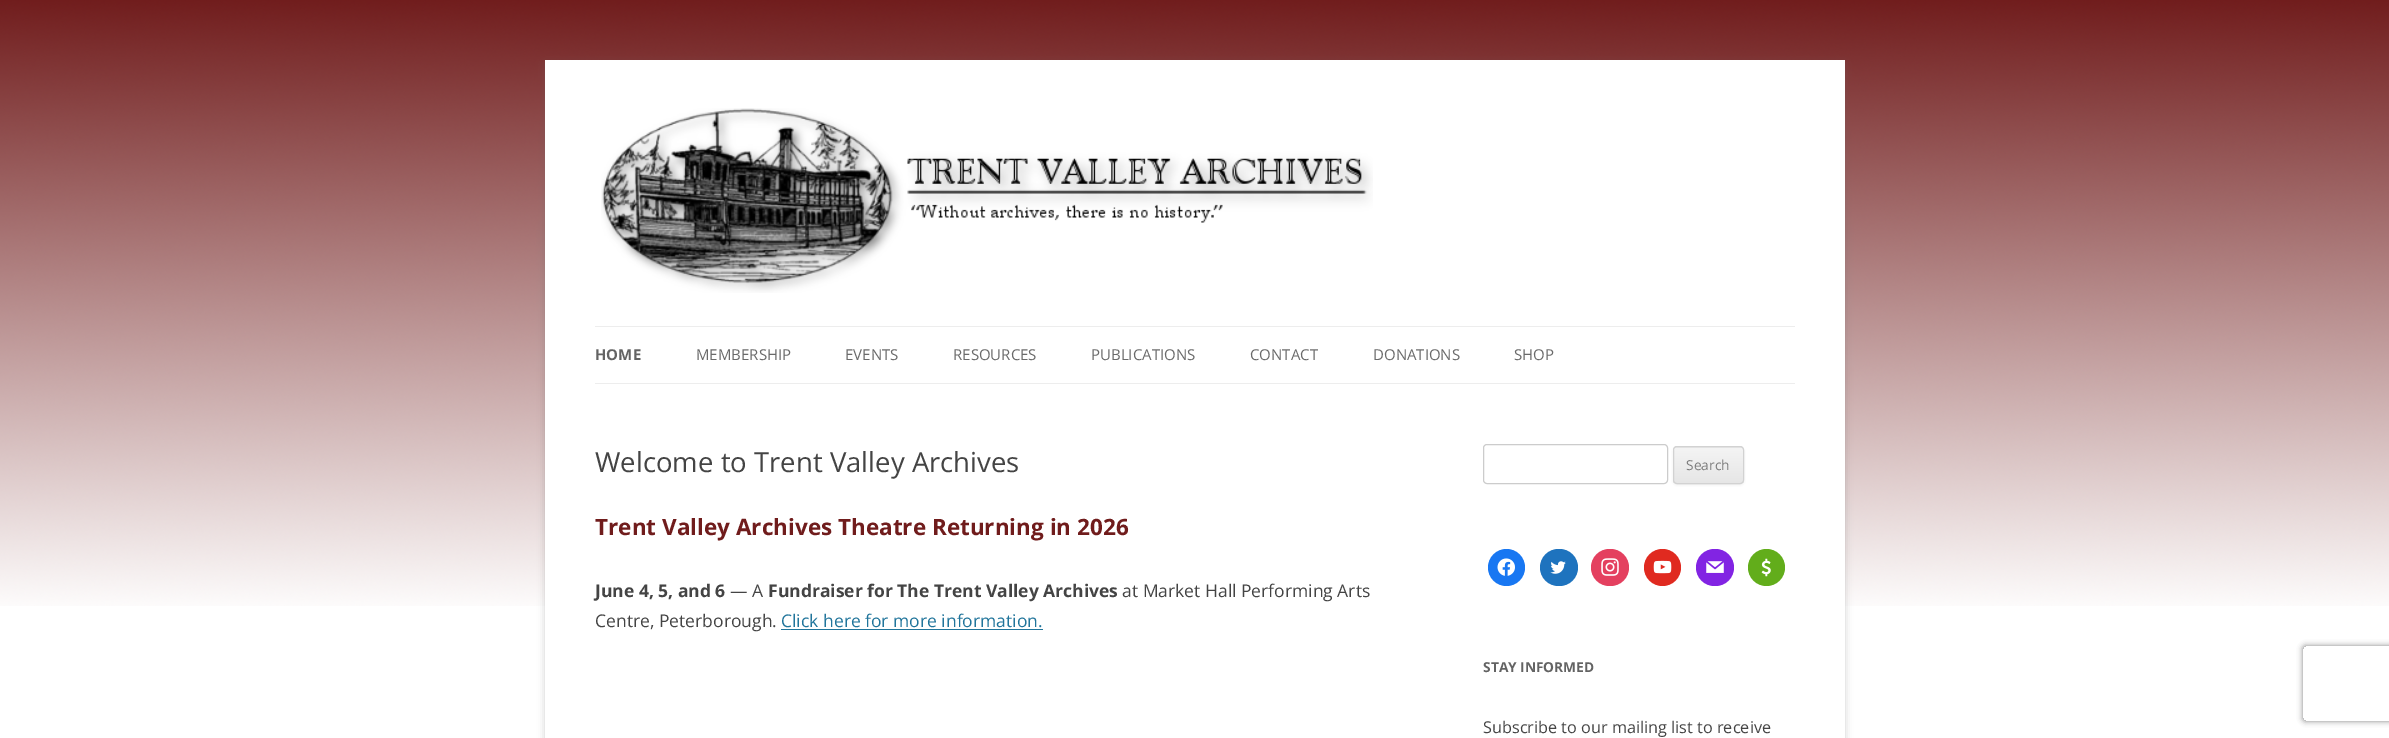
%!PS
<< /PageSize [2389 738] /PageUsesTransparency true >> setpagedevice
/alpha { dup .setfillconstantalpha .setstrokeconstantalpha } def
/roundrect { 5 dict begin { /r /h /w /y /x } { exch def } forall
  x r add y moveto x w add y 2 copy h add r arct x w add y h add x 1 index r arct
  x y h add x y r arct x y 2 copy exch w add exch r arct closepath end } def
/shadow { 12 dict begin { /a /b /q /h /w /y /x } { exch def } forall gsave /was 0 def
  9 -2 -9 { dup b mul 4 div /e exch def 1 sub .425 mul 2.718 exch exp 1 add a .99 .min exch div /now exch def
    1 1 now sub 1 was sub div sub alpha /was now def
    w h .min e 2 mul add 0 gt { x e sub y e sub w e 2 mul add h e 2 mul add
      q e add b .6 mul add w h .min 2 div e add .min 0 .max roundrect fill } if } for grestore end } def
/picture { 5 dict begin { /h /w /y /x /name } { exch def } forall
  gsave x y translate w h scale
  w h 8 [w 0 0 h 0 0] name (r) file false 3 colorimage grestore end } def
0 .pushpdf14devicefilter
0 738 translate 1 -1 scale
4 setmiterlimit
1 setgray
0 0 2389 738 rectfill
(img1.rgb) 0 0 2389 606 picture
0.392 setgray
545 63 1300 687 0 4 0.3 shadow
1 setgray
545 60 1300 678 rectfill
(img2.rgb) 601 108 772 185 picture
0.929 setgray
595 326 1200 1 rectfill
595 383 1200 1 rectfill
/OpenSans-Bold [15 0 0 -15 0 0] selectfont
0.388 setgray
595 360 moveto (HOME) show
/OpenSans-Regular [15 0 0 -15 0 0] selectfont
0.416 setgray
696 360 moveto (MEMBERSHIP) show
845 360 moveto (EVENTS) show
953 360 moveto (RESOURCES) show
1091 360 moveto (PUBLICATIONS) show
1250 360 moveto (CONTACT) show
1373 360 moveto (DONATIONS) show
1514 360 moveto (SHOP) show
/OpenSans-Regular [27.5 0 0 -27.5 0 0] selectfont
0.267 setgray
595 472 moveto (Welcome to Trent Valley Archives) show
/OpenSans-Bold [22.5 0 0 -22.5 0 0] selectfont
0.439 0.11 0.11 setrgbcolor
595 535 moveto (Trent Valley Archives Theatre Returning in 2026) show
/OpenSans-Bold [17.5 0 0 -17.5 0 0] selectfont
0.267 setgray
595 597 moveto (June 4, 5, and 6) show
/OpenSans-Regular [17.5 0 0 -17.5 0 0] selectfont
730 597 moveto (— A) show
/OpenSans-Bold [17.5 0 0 -17.5 0 0] selectfont
768 597 moveto (Fundraiser for The Trent Valley Archives) show
/OpenSans-Regular [17.5 0 0 -17.5 0 0] selectfont
1122 597 moveto (at Market Hall Performing Arts) show
595 627 moveto (Centre, Peterborough.) show
0.129 0.459 0.608 setrgbcolor
781 627 moveto (Click here for more information.) show
781 629 262 1 rectfill
0.8 setgray
1483.5 444.5 184 39 3.5 roundrect stroke
0.251 setgray
1673 448 71 37 4 1 0.1 shadow
0.902 setgray
1673 446 71 38 4 roundrect fill
gsave
1673 446 71 38 4 roundrect clip newpath
gsave newpath 1673 448 moveto 1744 448 lineto 1744 483 lineto 1673 483 lineto closepath clip newpath
<< /ShadingType 2 /ColorSpace /DeviceRGB /Coords [1708 448 1708 483] /Extend [true true] /Function << /FunctionType 2 /Domain [0 1] /C0 [0.957 0.957 0.957] /C1 [0.902 0.902 0.902] /N 1 >> >> shfill grestore
grestore
0.824 setgray
1673.5 446.5 70 37 3.5 roundrect stroke
/OpenSans-Regular [13.75 0 0 -13.75 0 0] selectfont
0.486 setgray
1686 470 moveto (Search) show
0.094 0.467 0.949 setrgbcolor
newpath 1506.5 567.5 18.5 0 360 arc closepath fill
(img3.rgb) 1497 558 18 18 picture
0.118 0.451 0.745 setrgbcolor
1540 549 38 37 18.5 roundrect fill
(img4.rgb) 1550 561 16 13 picture
0.894 0.251 0.373 setrgbcolor
1591 549 38 37 18.5 roundrect fill
(img5.rgb) 1601 558 18 18 picture
0.878 0.165 0.125 setrgbcolor
newpath 1662.5 567.5 18.5 0 360 arc closepath fill
(img6.rgb) 1653 560 19 14 picture
0.51 0.141 0.89 setrgbcolor
1696 549 38 37 18.5 roundrect fill
(img7.rgb) 1706 561 18 12 picture
0.384 0.678 0.106 setrgbcolor
newpath 1766.5 567.5 18.5 0 360 arc closepath fill
(img8.rgb) 1761 558 10 19 picture
/OpenSans-Bold [13.75 0 0 -13.75 0 0] selectfont
0.388 setgray
1483 672 moveto (STAY INFORMED) show
/OpenSans-Regular [16.25 0 0 -16.25 0 0] selectfont
0.267 setgray
1483 733 moveto (Subscribe to our mailing list to receive) show
gsave
newpath 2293 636 moveto 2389 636 lineto 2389 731 lineto 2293 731 lineto closepath 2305.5 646 moveto 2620.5 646 lineto 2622 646 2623 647 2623 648.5 curveto 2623 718.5 lineto 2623 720 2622 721 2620.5 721 curveto 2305.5 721 lineto 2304 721 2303 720 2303 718.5 curveto 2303 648.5 lineto 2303 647 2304 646 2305.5 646 curveto closepath eoclip newpath
0.502 setgray
2303 646 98 75 2.5 3 1 shadow
grestore
.poppdf14devicefilter showpage
